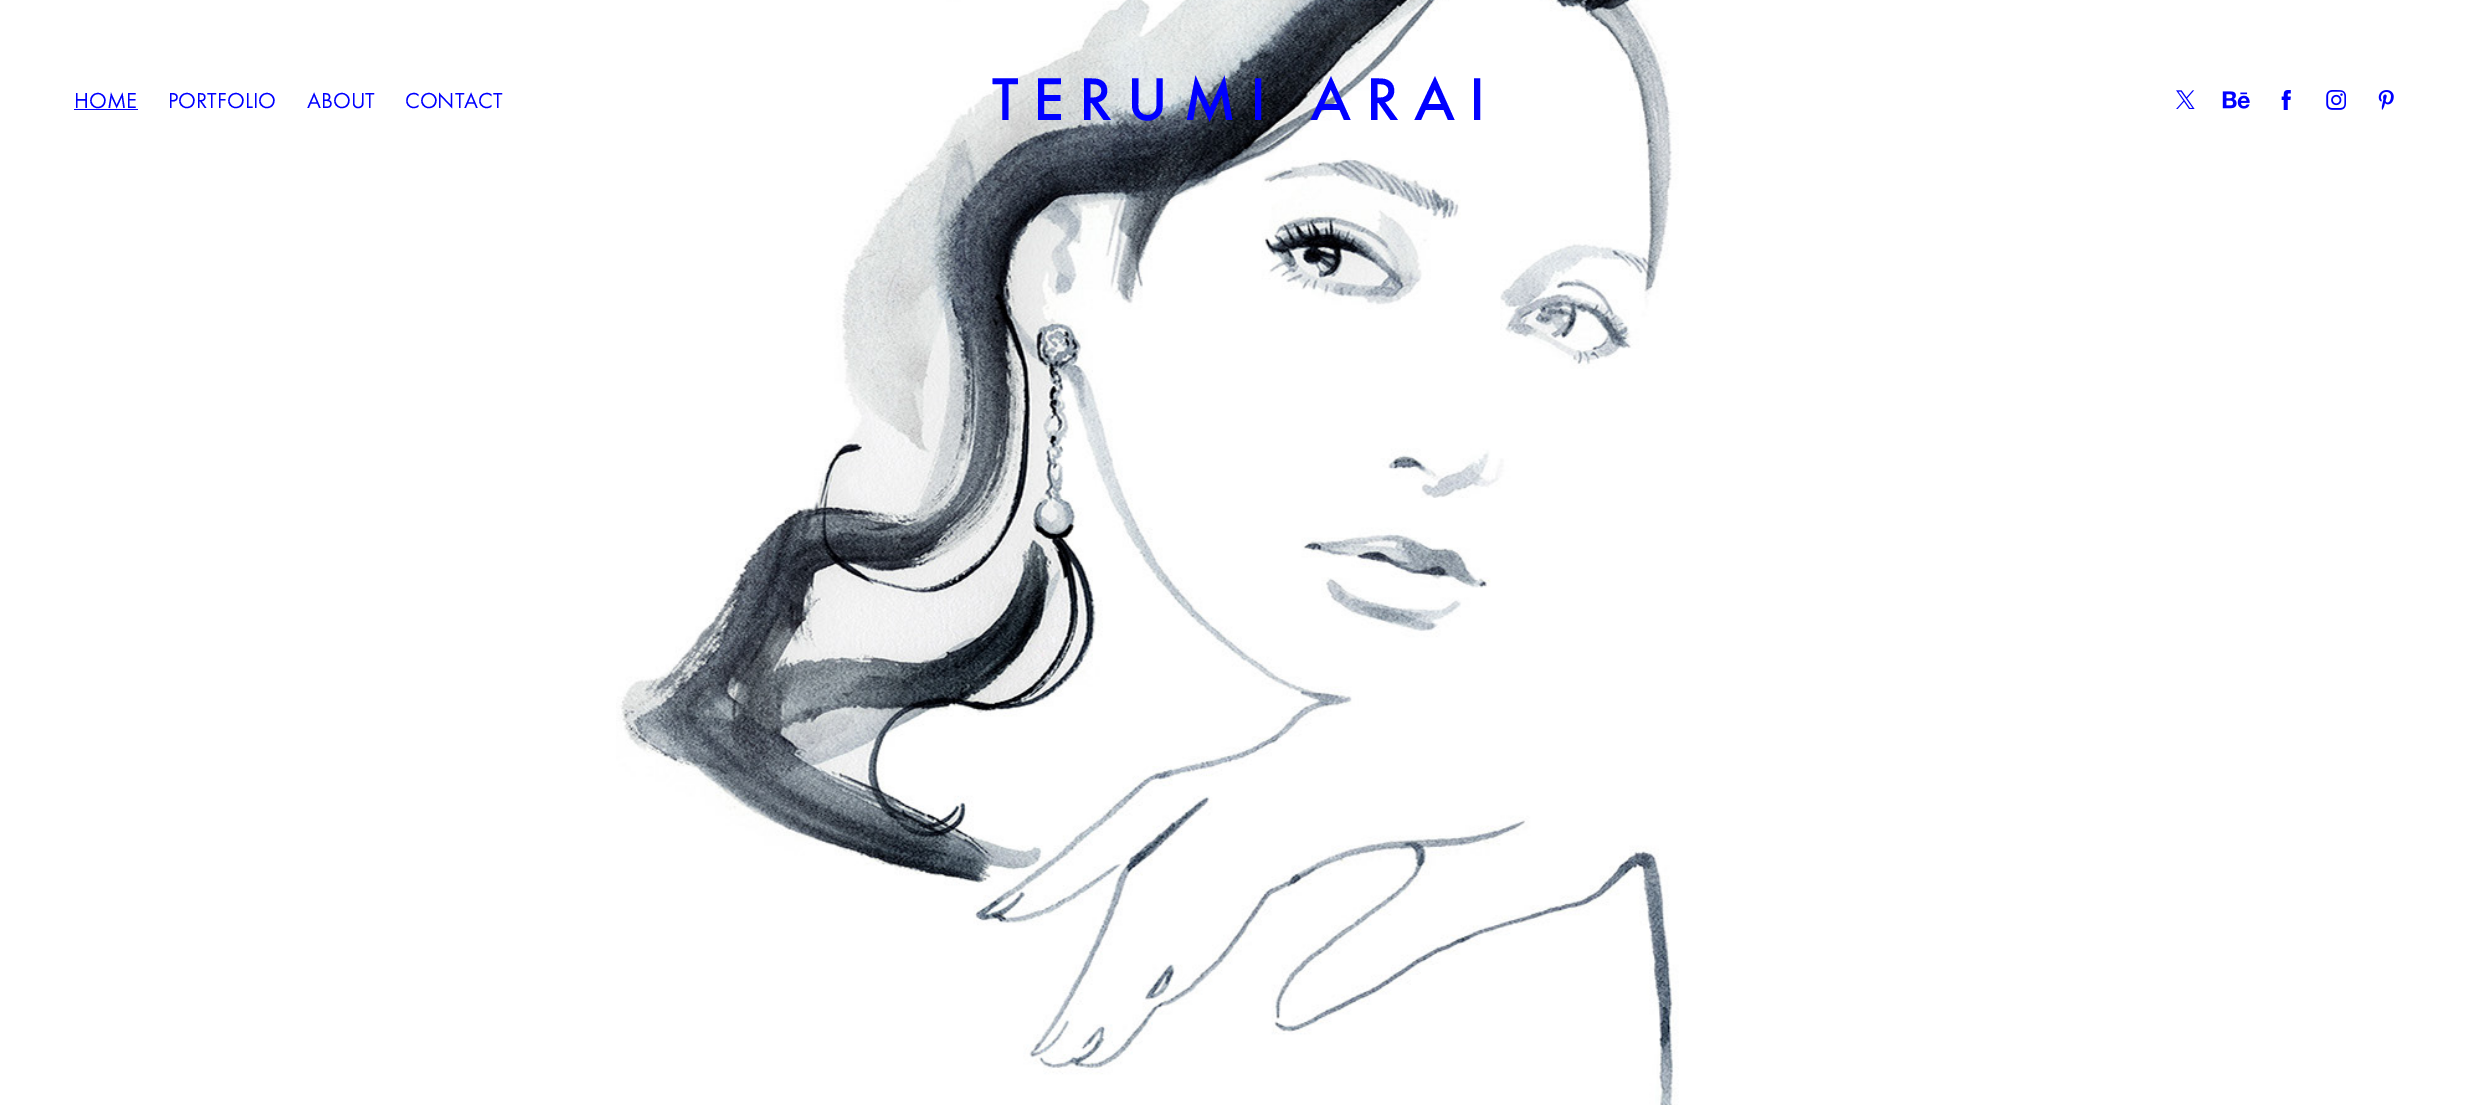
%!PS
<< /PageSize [2478 1105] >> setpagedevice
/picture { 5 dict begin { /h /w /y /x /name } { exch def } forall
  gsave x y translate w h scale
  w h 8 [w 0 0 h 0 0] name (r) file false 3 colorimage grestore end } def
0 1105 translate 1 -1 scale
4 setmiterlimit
1 setgray
0 0 2478 1105 rectfill
(img1.rgb) 616 0 1063 1105 picture
/FuturaPT-Regular [22.5 0 0 -22.5 0 0] selectfont
0 0 1 setrgbcolor
74 108 moveto (HOME) show
74 109 64 1 rectfill
168 108 moveto (PORTFOLIO) show
307 108 moveto (ABOUT) show
405 108 moveto (CONTACT) show
/FuturaPT-Medium [62.5 0 0 -62.5 0 0] selectfont
992 120 moveto (T E R U M I   A R A I) show
(img2.rgb) 2176 90 19 19 picture
(img3.rgb) 2222 91 28 18 picture
(img4.rgb) 2281 90 10 20 picture
(img5.rgb) 2326 90 20 20 picture
(img6.rgb) 2378 90 16 20 picture
showpage
